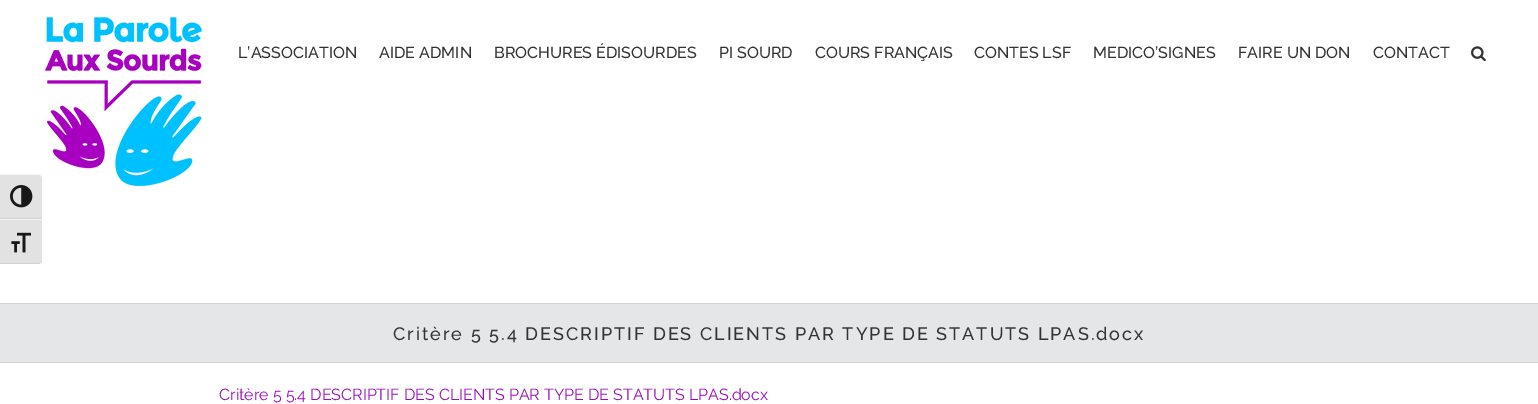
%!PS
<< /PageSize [1538 404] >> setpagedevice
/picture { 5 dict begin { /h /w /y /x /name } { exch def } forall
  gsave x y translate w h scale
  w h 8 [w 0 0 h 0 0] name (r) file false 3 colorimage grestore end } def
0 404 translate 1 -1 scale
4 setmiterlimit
1 setgray
0 0 1538 404 rectfill
0.886 setgray
newpath 0 174 moveto 38 174 lineto 40 174 42 176 42 178 curveto 42 219 lineto 0 219 lineto closepath fill
0.961 setgray
newpath 0 174 moveto 0 175 lineto 38 175 lineto 40 175 42 176 42 178 curveto 42 176 40 174 38 174 curveto closepath fill
0.824 setgray
0 218 42 1 rectfill
(img1.rgb) 10 185 23 23 picture
0.886 setgray
newpath 0 219 moveto 42 219 lineto 42 260 lineto 42 262 40 264 38 264 curveto 0 264 lineto closepath fill
0.961 setgray
0 219 42 1 rectfill
0.824 setgray
newpath 0 263 moveto 0 264 lineto 38 264 lineto 40 264 42 262 42 260 curveto 42 262 40 263 38 263 curveto closepath fill
(img2.rgb) 11 232 20 21 picture
(img3.rgb) 45 17 157 169 picture
/Raleway-Medium [16 0 0 -16 0 0] selectfont
0.2 setgray
238 58 moveto (L’ASSOCIATION) show
379 58 moveto (AIDE ADMIN) show
494 58 moveto (BROCHURES ÉDISOURDES) show
719 58 moveto (PI SOURD) show
815 58 moveto (COURS FRANÇAIS) show
974 58 moveto (CONTES LSF) show
1093 58 moveto (MEDICO’SIGNES) show
1238 58 moveto (FAIRE UN DON) show
1373 58 moveto (CONTACT) show
(img4.rgb) 1471 46 15 16 picture
0.898 0.902 0.906 setrgbcolor
0 304 1538 58 rectfill
0.824 0.827 0.831 setrgbcolor
0 303 1538 1 rectfill
0 362 1538 1 rectfill
/Raleway-Medium [18 0 0 -18 0 0] selectfont
0.2 setgray
393 340 moveto 2 0 (Critère 5 5.4 DESCRIPTIF DES CLIENTS PAR TYPE DE STATUTS LPAS.docx) ashow
/Raleway-Regular [16 0 0 -16 0 0] selectfont
0.596 0.043 0.725 setrgbcolor
219 400 moveto (Critère 5 5.4 DESCRIPTIF DES CLIENTS PAR TYPE DE STATUTS LPAS.docx) show
showpage
